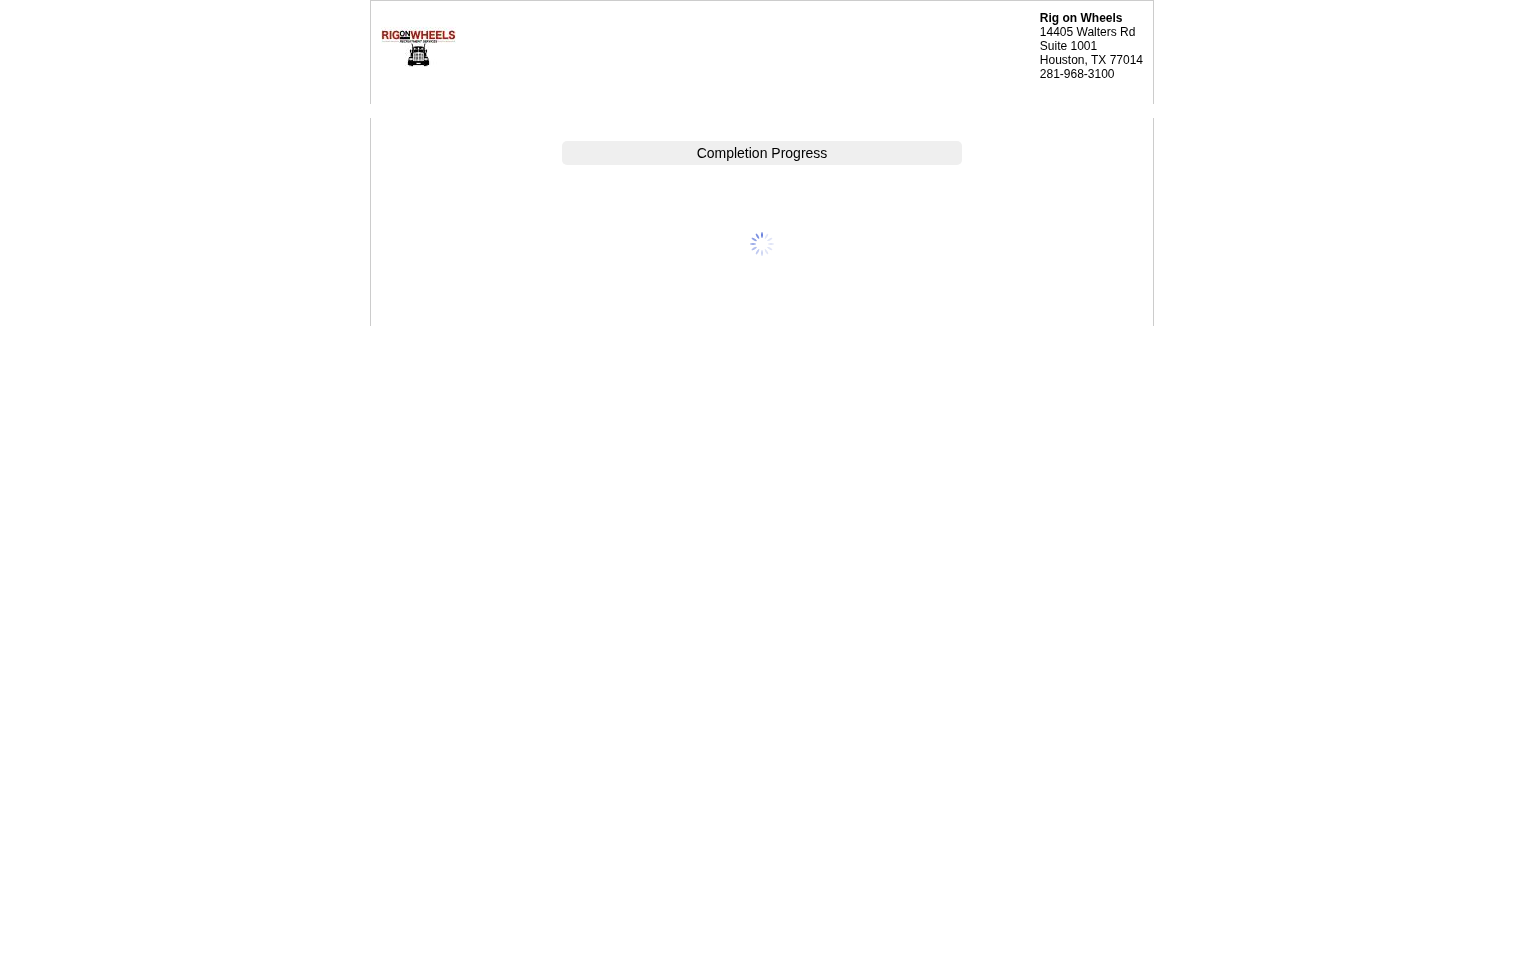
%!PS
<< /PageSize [1524 969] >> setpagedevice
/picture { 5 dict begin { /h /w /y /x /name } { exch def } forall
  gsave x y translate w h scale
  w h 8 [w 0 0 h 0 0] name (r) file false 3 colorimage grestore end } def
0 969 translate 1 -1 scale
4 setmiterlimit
1 setgray
0 0 1524 969 rectfill
(img1.rgb) 370 0 784 326 picture
showpage
